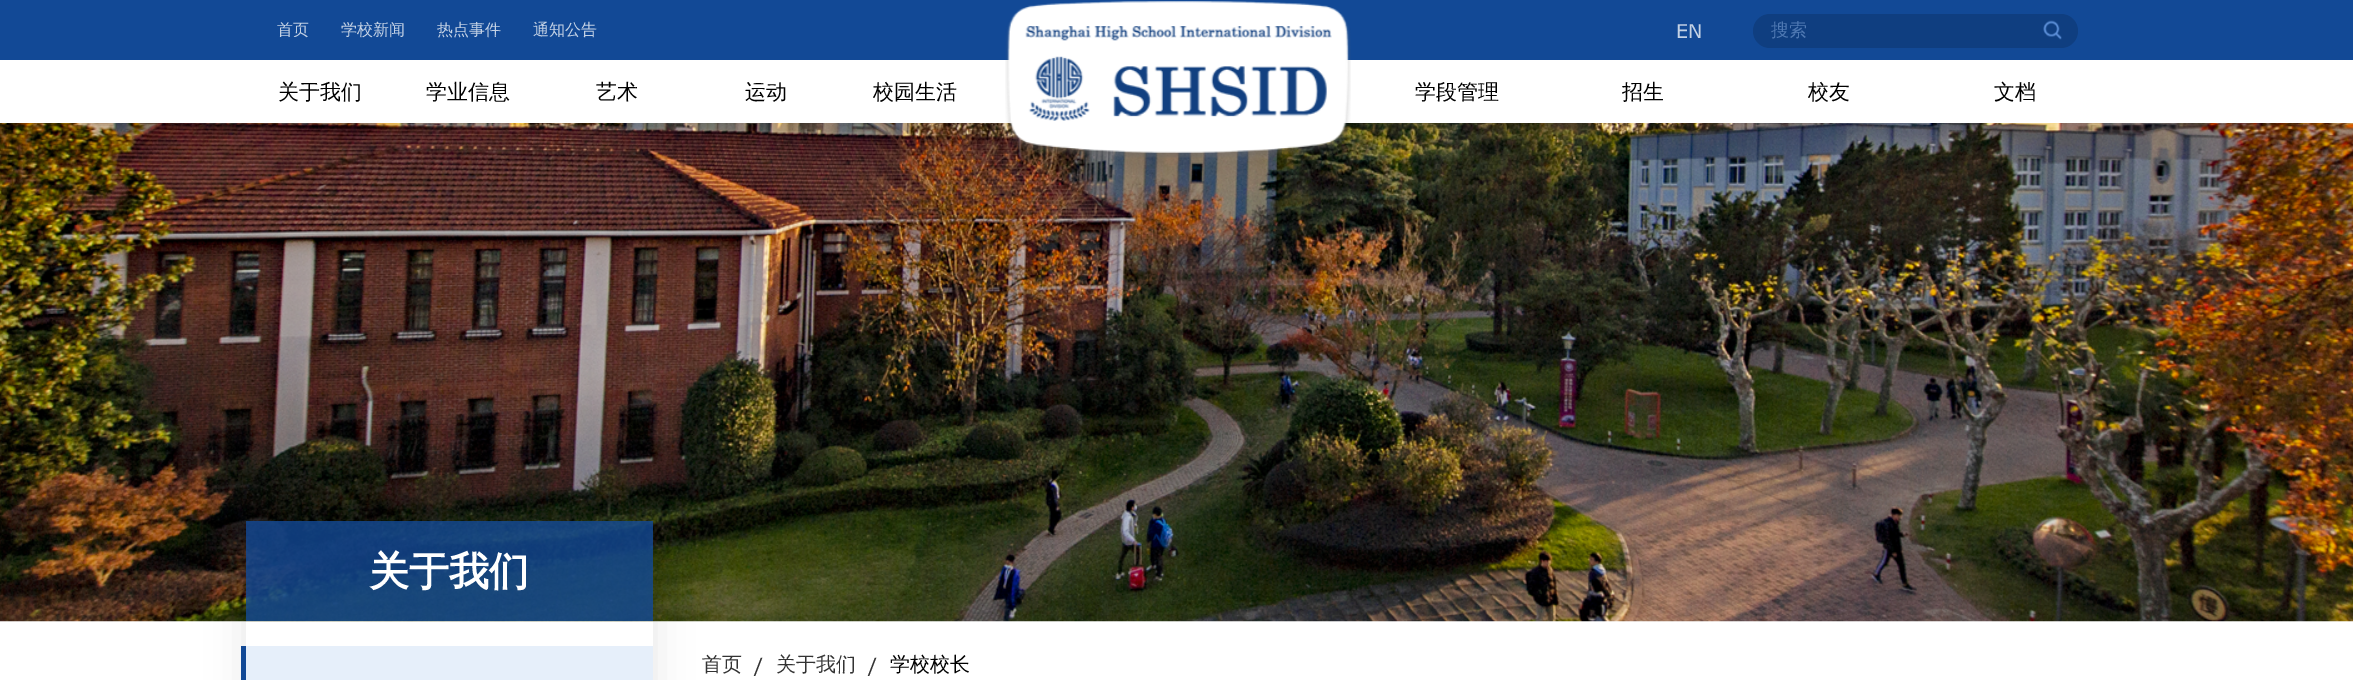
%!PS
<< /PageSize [2353 680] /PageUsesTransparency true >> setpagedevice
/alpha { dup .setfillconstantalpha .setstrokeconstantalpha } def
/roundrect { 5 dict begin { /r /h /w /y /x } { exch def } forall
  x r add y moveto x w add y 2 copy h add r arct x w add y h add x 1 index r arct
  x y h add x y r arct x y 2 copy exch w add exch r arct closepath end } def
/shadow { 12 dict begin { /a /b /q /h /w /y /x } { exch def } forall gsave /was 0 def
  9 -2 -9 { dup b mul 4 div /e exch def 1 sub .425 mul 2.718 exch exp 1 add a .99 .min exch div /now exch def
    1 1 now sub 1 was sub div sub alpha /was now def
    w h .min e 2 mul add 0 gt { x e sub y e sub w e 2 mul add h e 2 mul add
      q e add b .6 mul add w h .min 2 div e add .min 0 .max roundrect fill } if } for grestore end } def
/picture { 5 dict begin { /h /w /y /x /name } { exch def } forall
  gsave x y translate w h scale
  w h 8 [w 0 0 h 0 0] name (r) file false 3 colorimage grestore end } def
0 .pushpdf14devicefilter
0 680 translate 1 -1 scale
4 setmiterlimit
1 setgray
0 0 2353 680 rectfill
0.071 0.286 0.588 setrgbcolor
0 0 2353 60 rectfill
(img3.rgb) 0 123 2353 499 picture
(img1.rgb) 1005 1 346 157 picture
/WenQuanYiZenHei-Medium [16 0 0 -16 0 0] selectfont
0.769 0.824 0.898 setrgbcolor
277 35 moveto (首页) show
341 35 moveto (学校新闻) show
437 35 moveto (热点事件) show
533 35 moveto (通知公告) show
/Verdana-Regular [19 0 0 -19 0 0] selectfont
1676 38 moveto (EN) show
0.059 0.243 0.502 setrgbcolor
1753 14 325 34 17 roundrect fill
/WenQuanYiZenHei-Medium [18 0 0 -18 0 0] selectfont
0.31 0.475 0.702 setrgbcolor
1771 36 moveto (搜索) show
(img2.rgb) 2043 20 19 20 picture
/WenQuanYiZenHei-Medium [21 0 0 -21 0 0] selectfont
0 setgray
278 99 moveto (关于我们) show
426 99 moveto (学业信息) show
596 99 moveto (艺术) show
745 99 moveto (运动) show
873 99 moveto (校园生活) show
1415 99 moveto (学段管理) show
1622 99 moveto (招生) show
1808 99 moveto (校友) show
1994 99 moveto (文档) show
gsave
newpath 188 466 moveto 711 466 lineto 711 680 lineto 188 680 lineto closepath 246 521 moveto 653 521 lineto 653 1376 lineto 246 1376 lineto closepath eoclip newpath
246 524 407 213 0 19 0.1 shadow
grestore
0.8 alpha
0.071 0.286 0.588 setrgbcolor
246 521 407 100 rectfill
/WenQuanYiZenHei-Bold [40 0 0 -40 0 0] selectfont
1 alpha
1 setgray
369 585 moveto (关于我们) show
0.902 0.937 0.98 setrgbcolor
246 646 407 34 rectfill
0.071 0.286 0.588 setrgbcolor
241 646 5 34 rectfill
/WenQuanYiZenHei-Medium [20 0 0 -20 0 0] selectfont
0.2 setgray
702 671 moveto (首页) show
/Verdana-Regular [20 0 0 -20 0 0] selectfont
754 673 moveto (/) show
/WenQuanYiZenHei-Medium [20 0 0 -20 0 0] selectfont
776 671 moveto (关于我们) show
/Verdana-Regular [20 0 0 -20 0 0] selectfont
868 673 moveto (/) show
/WenQuanYiZenHei-Medium [20 0 0 -20 0 0] selectfont
0 setgray
890 671 moveto (学校校长) show
.poppdf14devicefilter showpage
